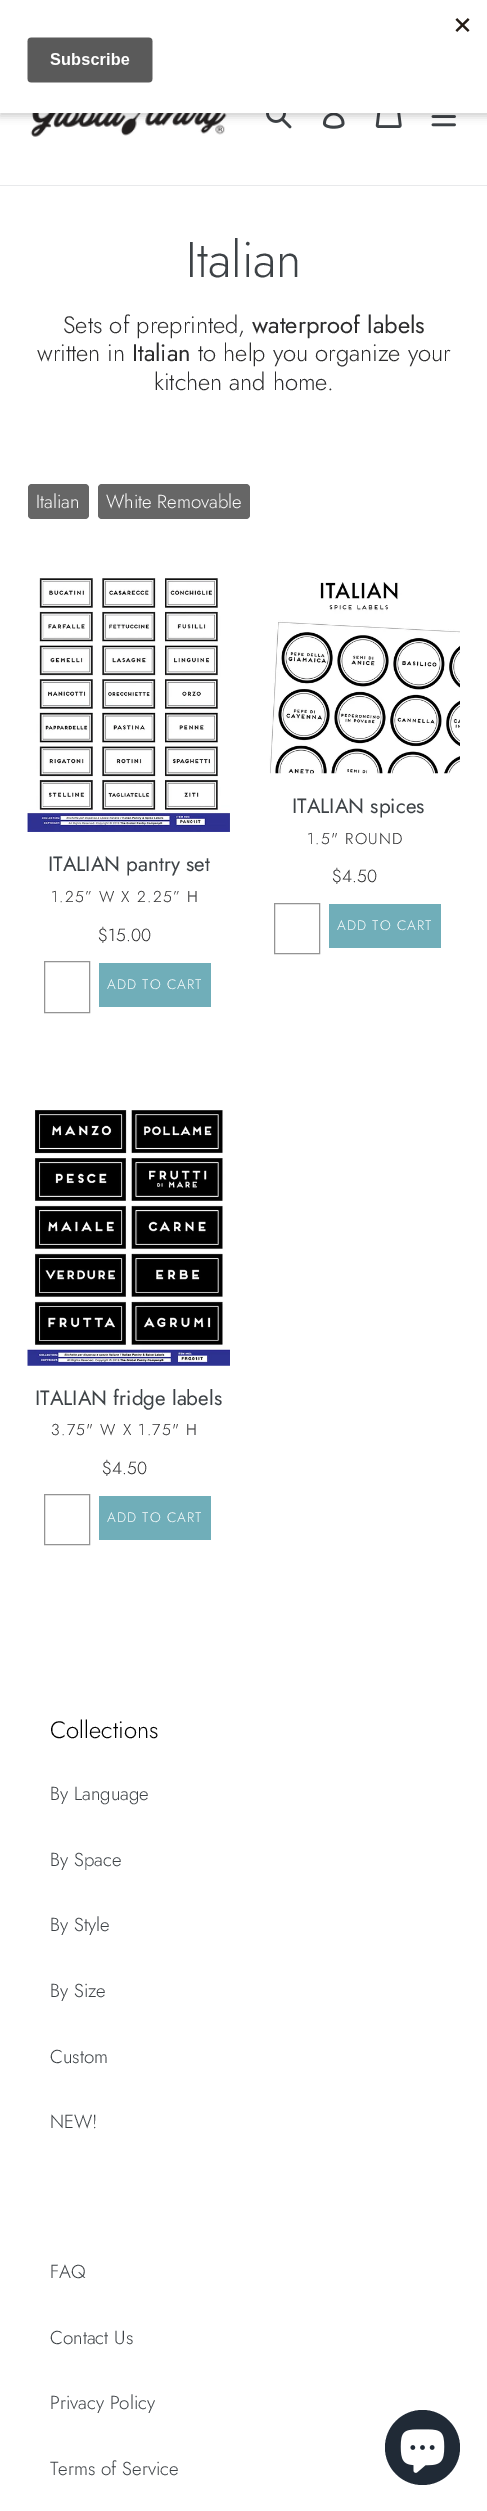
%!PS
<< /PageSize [487 2511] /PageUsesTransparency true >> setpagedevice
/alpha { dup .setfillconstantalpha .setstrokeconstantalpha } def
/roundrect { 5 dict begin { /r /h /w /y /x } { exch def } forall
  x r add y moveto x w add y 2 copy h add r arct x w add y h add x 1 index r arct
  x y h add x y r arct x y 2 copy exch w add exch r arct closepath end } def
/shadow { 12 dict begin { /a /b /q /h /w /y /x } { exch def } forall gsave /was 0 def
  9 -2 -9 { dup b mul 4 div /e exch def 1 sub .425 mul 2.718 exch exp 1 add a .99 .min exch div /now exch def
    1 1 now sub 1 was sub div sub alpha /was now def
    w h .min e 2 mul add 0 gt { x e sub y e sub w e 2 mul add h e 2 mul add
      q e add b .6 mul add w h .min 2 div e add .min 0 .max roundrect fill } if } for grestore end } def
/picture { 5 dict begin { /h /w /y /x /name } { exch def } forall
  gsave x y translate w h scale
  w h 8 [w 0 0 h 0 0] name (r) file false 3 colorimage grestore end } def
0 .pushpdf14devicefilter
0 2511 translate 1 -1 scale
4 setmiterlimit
1 setgray
0 0 487 2511 rectfill
(img2.rgb) 30 113 197 24 picture
(img3.rgb) 266 113 26 16 picture
(img4.rgb) 322 113 23 16 picture
(img5.rgb) 375 113 27 15 picture
(img6.rgb) 431 115 25 12 picture
0 setgray
0 4 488 112 0 4 0.2 shadow
1 setgray
0 0 487 113 rectfill
(img1.rgb) 27 18 443 65 picture
0.91 0.914 0.922 setrgbcolor
0 185 487 1 rectfill
/Jost-Light [50 0 0 -50 0 0] selectfont
0.239 0.259 0.275 setrgbcolor
186 277 moveto (Italian) show
/Jost-Light [23.75 0 0 -23.75 0 0] selectfont
0.173 0.173 0.176 setrgbcolor
63 333 moveto (Sets of preprinted,) show
/Jost-Regular [23.75 0 0 -23.75 0 0] selectfont
252 333 moveto (waterproof labels) show
/Jost-Light [23.75 0 0 -23.75 0 0] selectfont
37 361 moveto (written in) show
/Jost-Regular [23.75 0 0 -23.75 0 0] selectfont
132 361 moveto (Italian) show
/Jost-Light [23.75 0 0 -23.75 0 0] selectfont
198 361 moveto (to help you organize your) show
154 390 moveto (kitchen and home.) show
0.4 setgray
28 484 61 35 4 roundrect fill
/Jost-Light [18.75 0 0 -18.75 0 0] selectfont
1 setgray
36 508 moveto (Italian) show
0.4 setgray
98 484 152 35 4 roundrect fill
1 setgray
106 508 moveto (White Removable) show
(img7.rgb) 27 578 203 254 picture
/Jost-Regular [20.6 0 0 -20.6 0 0] selectfont
0.239 0.259 0.275 setrgbcolor
48 871 moveto (ITALIAN pantry set) show
/Jost-Light [15.75 0 0 -15.75 0 0] selectfont
0.173 0.173 0.176 setrgbcolor
51 902 moveto 1.25 0 (1.25” W X 2.25” H) ashow
/Jost-Light [17.5 0 0 -17.5 0 0] selectfont
98 941 moveto ($15.00) show
0.58 setgray
44.5 961.5 45 51 rectstroke
0.439 0.682 0.725 setrgbcolor
99 963 112 44 rectfill
/Jost-Light [13.75 0 0 -13.75 0 0] selectfont
1 setgray
107 989 moveto 1.1 0 (ADD TO CART) ashow
(img8.rgb) 269 582 191 192 picture
/Jost-Regular [20.6 0 0 -20.6 0 0] selectfont
0.239 0.259 0.275 setrgbcolor
292 813 moveto (ITALIAN spices) show
/Jost-Light [15.75 0 0 -15.75 0 0] selectfont
0.173 0.173 0.176 setrgbcolor
307 844 moveto 1.25 0 (1.5" ROUND) ashow
/Jost-Light [17.5 0 0 -17.5 0 0] selectfont
332 882 moveto ($4.50) show
0.58 setgray
274.5 903.5 45 50 rectstroke
0.439 0.682 0.725 setrgbcolor
329 904 112 44 rectfill
/Jost-Light [13.75 0 0 -13.75 0 0] selectfont
1 setgray
337 930 moveto 1.1 0 (ADD TO CART) ashow
(img9.rgb) 27 1110 203 256 picture
/Jost-Regular [20.6 0 0 -20.6 0 0] selectfont
0.239 0.259 0.275 setrgbcolor
35 1405 moveto (ITALIAN fridge labels) show
/Jost-Light [15.75 0 0 -15.75 0 0] selectfont
0.173 0.173 0.176 setrgbcolor
51 1435 moveto 1.25 0 (3.75" W X 1.75" H) ashow
/Jost-Light [17.5 0 0 -17.5 0 0] selectfont
102 1474 moveto ($4.50) show
0.58 setgray
44.5 1494.5 45 50 rectstroke
0.439 0.682 0.725 setrgbcolor
99 1496 112 44 rectfill
/Jost-Light [13.75 0 0 -13.75 0 0] selectfont
1 setgray
107 1522 moveto 1.1 0 (ADD TO CART) ashow
/Jost-Light [23.75 0 0 -23.75 0 0] selectfont
0 setgray
50 1738 moveto (Collections) show
/Jost-Light [18.75 0 0 -18.75 0 0] selectfont
0.239 0.259 0.275 setrgbcolor
50 1800 moveto (By Language) show
50 1866 moveto (By Space) show
50 1931 moveto (By Style) show
50 1997 moveto (By Size) show
50 2063 moveto (Custom) show
50 2128 moveto (NEW!) show
50 2278 moveto (FAQ) show
50 2344 moveto (Contact Us) show
50 2409 moveto (Privacy Policy) show
50 2475 moveto (Terms of Service) show
0.125 0.165 0.212 setrgbcolor
newpath 422.5 2447.5 37.5 0 360 arc closepath fill
(img10.rgb) 400 2429 45 44 picture
.poppdf14devicefilter showpage
